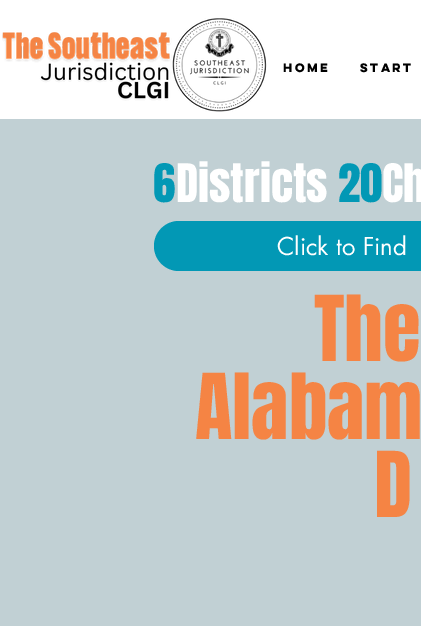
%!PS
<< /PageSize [421 626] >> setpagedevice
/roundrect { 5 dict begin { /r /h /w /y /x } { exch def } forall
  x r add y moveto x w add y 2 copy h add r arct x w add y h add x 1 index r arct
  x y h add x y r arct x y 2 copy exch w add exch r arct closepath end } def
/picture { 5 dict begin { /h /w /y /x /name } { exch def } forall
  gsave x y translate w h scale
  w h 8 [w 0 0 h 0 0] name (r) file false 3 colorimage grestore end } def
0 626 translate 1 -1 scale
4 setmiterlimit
0.757 0.816 0.831 setrgbcolor
0 0 421 626 rectfill
1 setgray
0 0 421 119 rectfill
(img1.rgb) 2 18 265 94 picture
/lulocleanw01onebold-Bold [11 0 0 -11 0 0] selectfont
0 setgray
283 72 moveto (HOME) show
360 72 moveto (START) show
/Anton-Regular [45 0 0 -45 0 0] selectfont
0.008 0.596 0.71 setrgbcolor
153 202 moveto (6) show
1 setgray
176 202 moveto (Districts) show
0.008 0.596 0.71 setrgbcolor
338 202 moveto (20) show
1 setgray
382 202 moveto (Ch) show
0.008 0.596 0.71 setrgbcolor
154 221 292 50 25 roundrect fill
/futura-Regular [24 0 0 -24 0 0] selectfont
1 setgray
277 255 moveto (Click to Find) show
/Anton-Regular [77 0 0 -77 0 0] selectfont
0.961 0.518 0.267 setrgbcolor
314 361 moveto (The) show
195 439 moveto (Alabam) show
374 517 moveto (D) show
showpage
